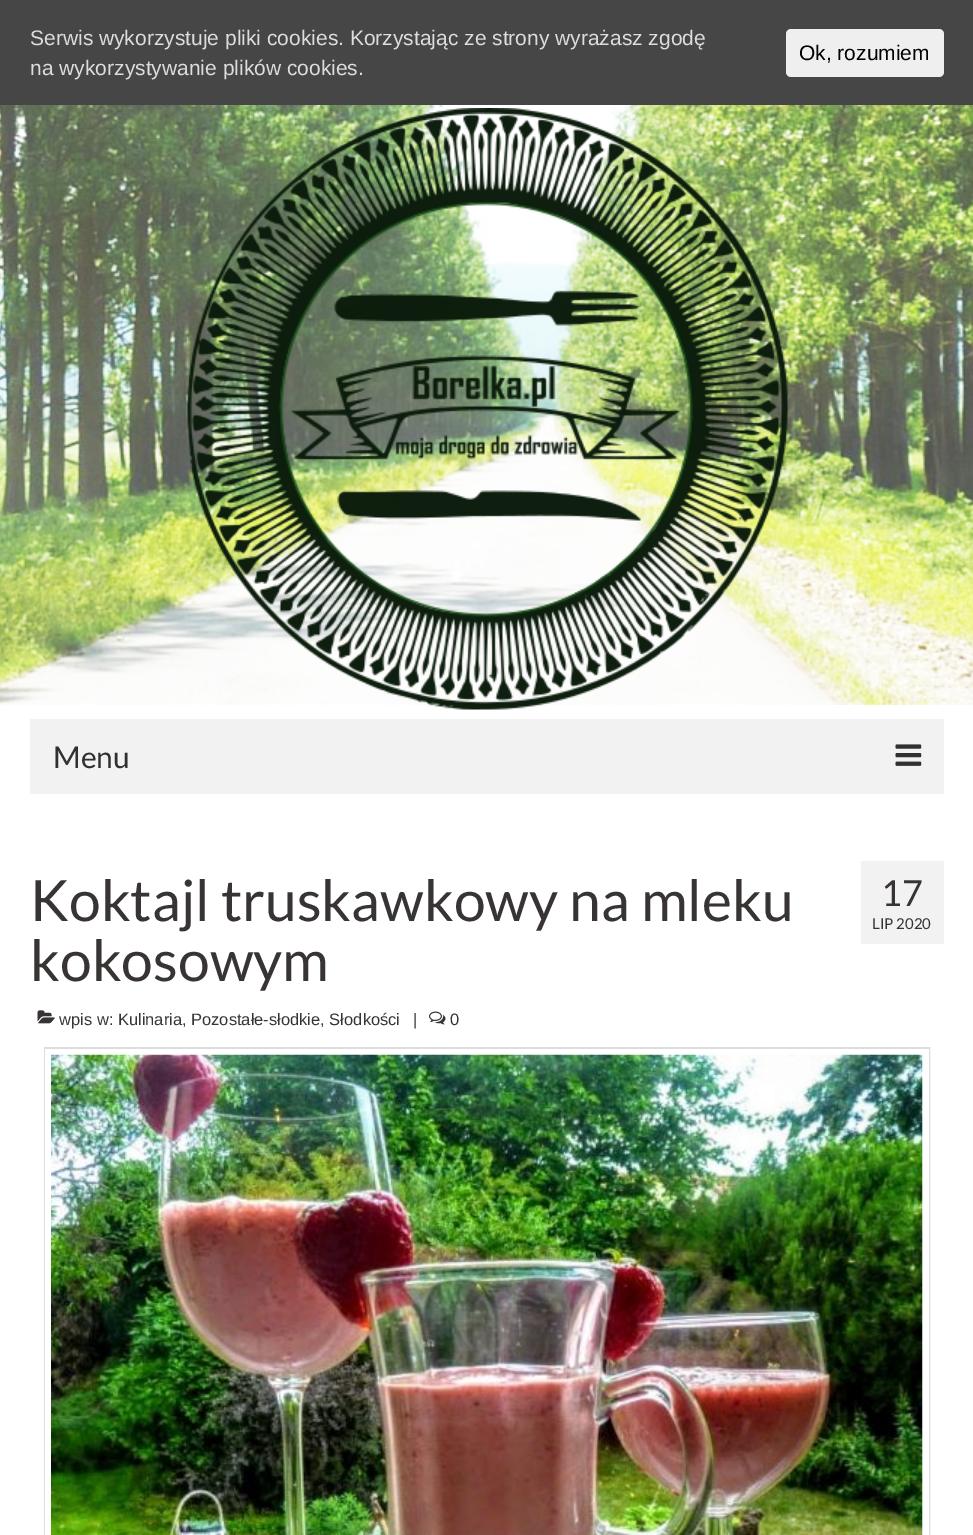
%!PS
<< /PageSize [973 1535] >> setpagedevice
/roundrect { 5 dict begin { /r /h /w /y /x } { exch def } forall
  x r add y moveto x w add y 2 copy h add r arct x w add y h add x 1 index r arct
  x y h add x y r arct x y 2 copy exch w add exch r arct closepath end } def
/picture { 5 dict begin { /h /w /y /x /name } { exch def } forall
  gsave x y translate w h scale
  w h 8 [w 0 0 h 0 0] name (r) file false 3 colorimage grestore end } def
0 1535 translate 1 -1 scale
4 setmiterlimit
1 setgray
0 0 973 1535 rectfill
0.275 setgray
0 0 973 105 rectfill
/LiberationSans-Regular [21 0 0 -21 0 0] selectfont
0.867 setgray
30 45 moveto (Serwis wykorzystuje pliki cookies. Korzystając ze strony wyrażasz zgodę) show
30 75 moveto (na wykorzystywanie plików cookies.) show
0.937 setgray
786 29 158 48 5 roundrect fill
0 setgray
799 60 moveto (Ok, rozumiem) show
(img1.rgb) 0 105 973 600 picture
(img2.rgb) 187 108 601 602 picture
0.949 setgray
30 719 914 75 rectfill
/Lato-Regular [30 0 0 -30 0 0] selectfont
0.188 setgray
53 768 moveto (Menu) show
(img3.rgb) 895 744 27 22 picture
/Lato-Regular [57 0 0 -57 0 0] selectfont
0.22 0.204 0.2 setrgbcolor
30 921 moveto (Koktajl truskawkowy na mleku) show
30 981 moveto (kokosowym) show
(img4.rgb) 37 1010 18 14 picture
/LiberationSans-Regular [16.5 0 0 -16.5 0 0] selectfont
59 1025 moveto (wpis w: Kulinaria, Pozostałe-słodkie, Słodkości) show
413 1025 moveto (|) show
(img5.rgb) 429 1011 17 14 picture
450 1025 moveto (0) show
0.949 setgray
861 861 83 83 rectfill
/Lato-Regular [36 0 0 -36 0 0] selectfont
0.22 0.204 0.2 setrgbcolor
881 906 moveto (17) show
/Lato-Regular [15 0 0 -15 0 0] selectfont
872 929 moveto (LIP 2020) show
0.867 setgray
2 setlinewidth
45 1048 884 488 rectstroke
1 setgray
45 1049 884 486 rectfill
(img6.rgb) 51 1054 872 481 picture
showpage
